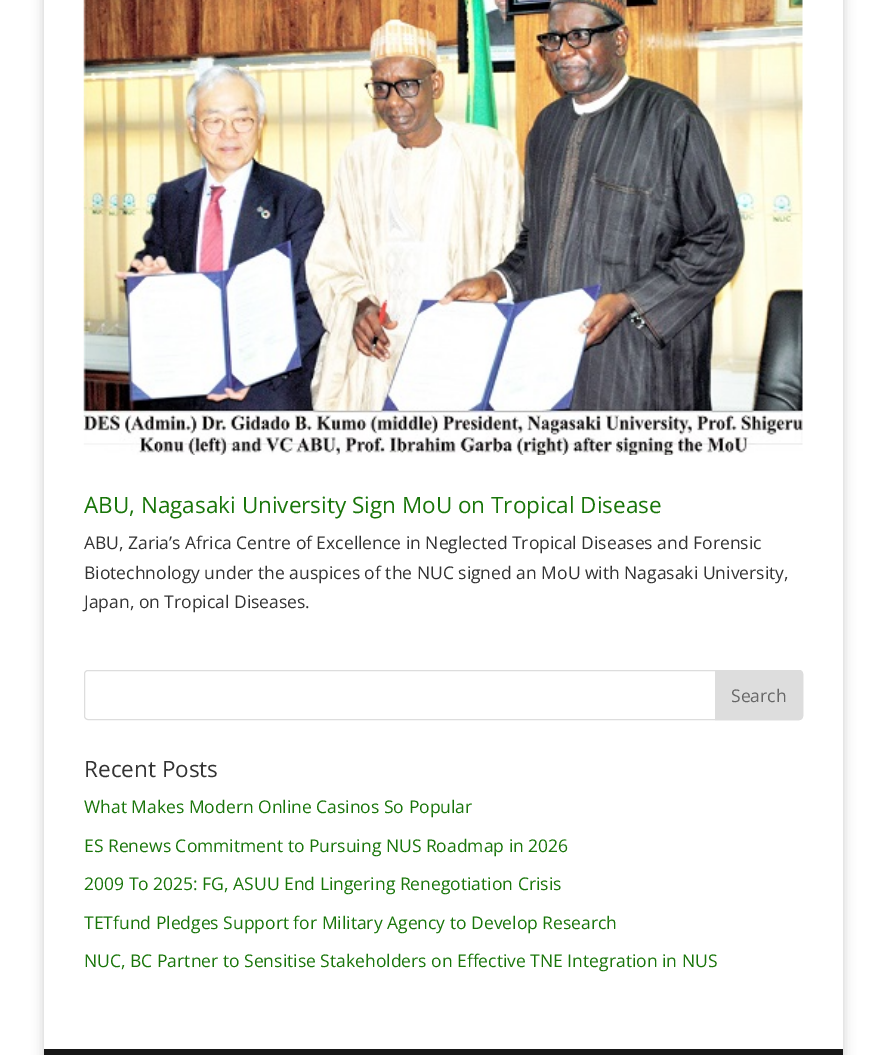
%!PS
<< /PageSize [886 1055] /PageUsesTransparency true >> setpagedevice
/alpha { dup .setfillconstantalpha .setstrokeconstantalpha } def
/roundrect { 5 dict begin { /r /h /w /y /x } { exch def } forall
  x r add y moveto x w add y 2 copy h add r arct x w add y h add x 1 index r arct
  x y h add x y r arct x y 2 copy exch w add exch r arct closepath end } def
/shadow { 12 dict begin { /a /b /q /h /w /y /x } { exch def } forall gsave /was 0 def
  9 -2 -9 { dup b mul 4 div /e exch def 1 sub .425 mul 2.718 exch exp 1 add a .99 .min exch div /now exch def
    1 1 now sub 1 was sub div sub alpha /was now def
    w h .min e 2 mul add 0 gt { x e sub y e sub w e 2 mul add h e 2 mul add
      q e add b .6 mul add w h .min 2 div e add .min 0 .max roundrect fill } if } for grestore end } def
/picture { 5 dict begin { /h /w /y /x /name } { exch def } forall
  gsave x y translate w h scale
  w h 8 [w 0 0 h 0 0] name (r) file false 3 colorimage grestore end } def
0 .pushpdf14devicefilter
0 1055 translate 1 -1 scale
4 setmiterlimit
1 setgray
0 0 886 1055 rectfill
0 setgray
44 -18 799 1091 0 6 0.2 shadow
1 setgray
44 0 799 1049 rectfill
(img1.rgb) 83 0 720 455 picture
/OpenSans-Regular [22.5 0 0 -22.5 0 0] selectfont
0.094 0.459 0.035 setrgbcolor
84 513 moveto (ABU, Nagasaki University Sign MoU on Tropical Disease) show
/OpenSans-Regular [17.5 0 0 -17.5 0 0] selectfont
0.2 setgray
84 549 moveto (ABU, Zaria’s Africa Centre of Excellence in Neglected Tropical Diseases and Forensic) show
84 579 moveto (Biotechnology under the auspices of the NUC signed an MoU with Nagasaki University,) show
84 608 moveto (Japan, on Tropical Diseases.) show
0.867 setgray
84.5 670.5 718 49 3.5 roundrect stroke
newpath 715.5 670.5 moveto 799 670.5 lineto 801 670.5 802.5 672 802.5 674 curveto 802.5 716 lineto 802.5 718 801 719.5 799 719.5 curveto 715.5 719.5 lineto closepath gsave fill grestore
stroke
0.4 setgray
731 702 moveto (Search) show
/OpenSans-Regular [22.5 0 0 -22.5 0 0] selectfont
0.2 setgray
84 777 moveto (Recent Posts) show
/OpenSans-Regular [17.5 0 0 -17.5 0 0] selectfont
0.094 0.459 0.035 setrgbcolor
84 813 moveto (What Makes Modern Online Casinos So Popular) show
84 852 moveto (ES Renews Commitment to Pursuing NUS Roadmap in 2026) show
84 890 moveto (2009 To 2025: FG, ASUU End Lingering Renegotiation Crisis) show
84 929 moveto (TETfund Pledges Support for Military Agency to Develop Research) show
84 967 moveto (NUC, BC Partner to Sensitise Stakeholders on Effective TNE Integration in NUS) show
0.09 setgray
44 1049 799 6 rectfill
.poppdf14devicefilter showpage
